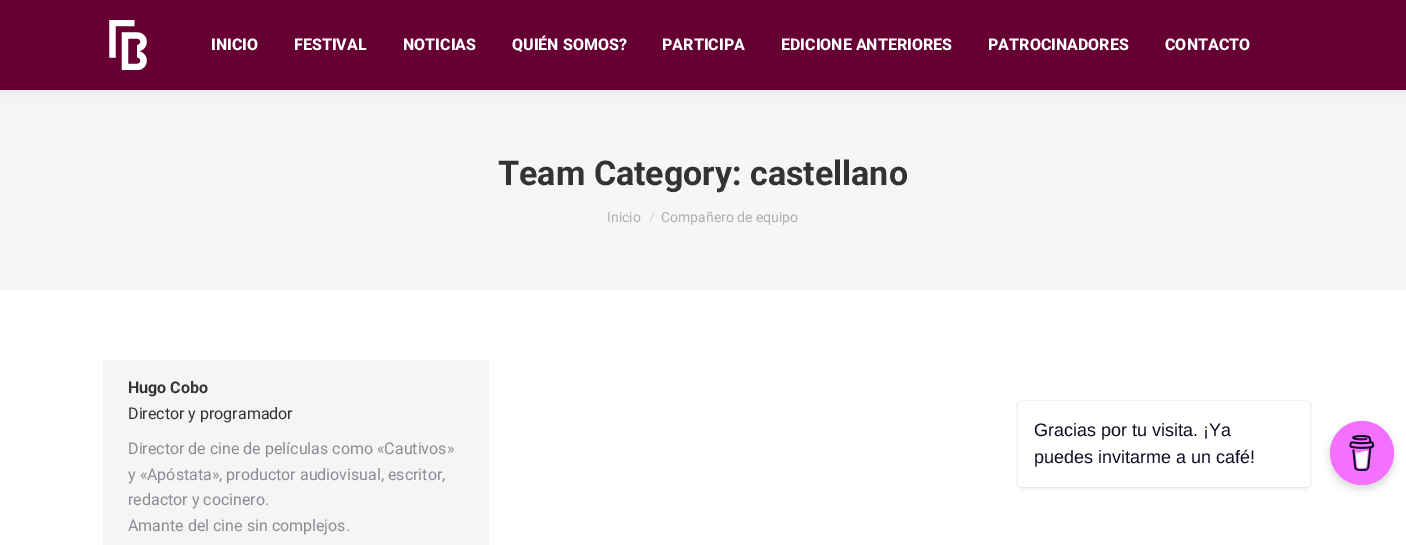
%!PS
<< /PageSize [1406 545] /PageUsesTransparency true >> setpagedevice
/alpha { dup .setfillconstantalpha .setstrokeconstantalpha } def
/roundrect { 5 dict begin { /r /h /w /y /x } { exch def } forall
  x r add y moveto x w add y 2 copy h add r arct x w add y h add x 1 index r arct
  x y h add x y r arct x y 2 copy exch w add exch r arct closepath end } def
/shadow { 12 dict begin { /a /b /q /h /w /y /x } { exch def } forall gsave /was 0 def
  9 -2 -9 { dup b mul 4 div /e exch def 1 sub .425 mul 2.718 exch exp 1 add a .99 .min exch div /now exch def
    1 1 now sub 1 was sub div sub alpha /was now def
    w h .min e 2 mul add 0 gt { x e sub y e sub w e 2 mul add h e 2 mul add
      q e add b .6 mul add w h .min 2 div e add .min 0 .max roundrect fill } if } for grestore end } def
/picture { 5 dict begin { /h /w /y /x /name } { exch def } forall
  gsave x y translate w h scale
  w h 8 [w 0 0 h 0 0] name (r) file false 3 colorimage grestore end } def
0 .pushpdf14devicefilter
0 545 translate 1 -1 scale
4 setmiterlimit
1 setgray
0 0 1406 545 rectfill
0.965 setgray
0 90 1406 200 rectfill
0 setgray
-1 -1 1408 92 0 7.5 0.07 shadow
0.4 0 0.2 setrgbcolor
0 0 1406 90 rectfill
(img1.rgb) 109 20 38 50 picture
/Roboto-ExtraBold [16 0 0 -16 0 0] selectfont
1 setgray
211 50 moveto (INICIO) show
294 50 moveto (FESTIVAL) show
403 50 moveto (NOTICIAS) show
512 50 moveto (QUIÉN SOMOS?) show
662 50 moveto (PARTICIPA) show
781 50 moveto (EDICIONE ANTERIORES) show
988 50 moveto (PATROCINADORES) show
1165 50 moveto (CONTACTO) show
/Roboto-Bold [34 0 0 -34 0 0] selectfont
0.2 setgray
498 185 moveto (Team Category: castellano) show
/Roboto-Regular [14 0 0 -14 0 0] selectfont
0.678 0.686 0.702 setrgbcolor
607 222 moveto (Inicio) show
0.824 0.827 0.835 setrgbcolor
649 222 moveto (/) show
0.678 0.686 0.702 setrgbcolor
661 222 moveto (Compañero de equipo) show
0.961 setgray
103 360 386 185 rectfill
/Roboto-Bold [16 0 0 -16 0 0] selectfont
0.2 setgray
128 393 moveto (Hugo Cobo) show
/Roboto-Regular [16 0 0 -16 0 0] selectfont
128 419 moveto (Director y programador) show
0.545 0.553 0.58 setrgbcolor
128 454 moveto (Director de cine de películas como «Cautivos») show
128 480 moveto (y «Apóstata», productor audiovisual, escritor,) show
128 505 moveto (redactor y cocinero.) show
128 531 moveto (Amante del cine sin complejos.) show
0 setgray
1330 425 64 64 32 4 0.15 shadow
0.957 0.443 1 setrgbcolor
newpath 1362 453 32 0 360 arc closepath fill
(img2.rgb) 1349 435 26 36 picture
0 setgray
1018 401 292 86 4 1 0.15 shadow
1018 403 292 86 4 2.5 0.05 shadow
1 setgray
1018 401 292 86 4 roundrect fill
/LiberationSans-Regular [18 0 0 -18 0 0] selectfont
0.051 0.047 0.133 setrgbcolor
1034 436 moveto (Gracias por tu visita. ¡Ya) show
1034 463 moveto (puedes invitarme a un café!) show
.poppdf14devicefilter showpage
